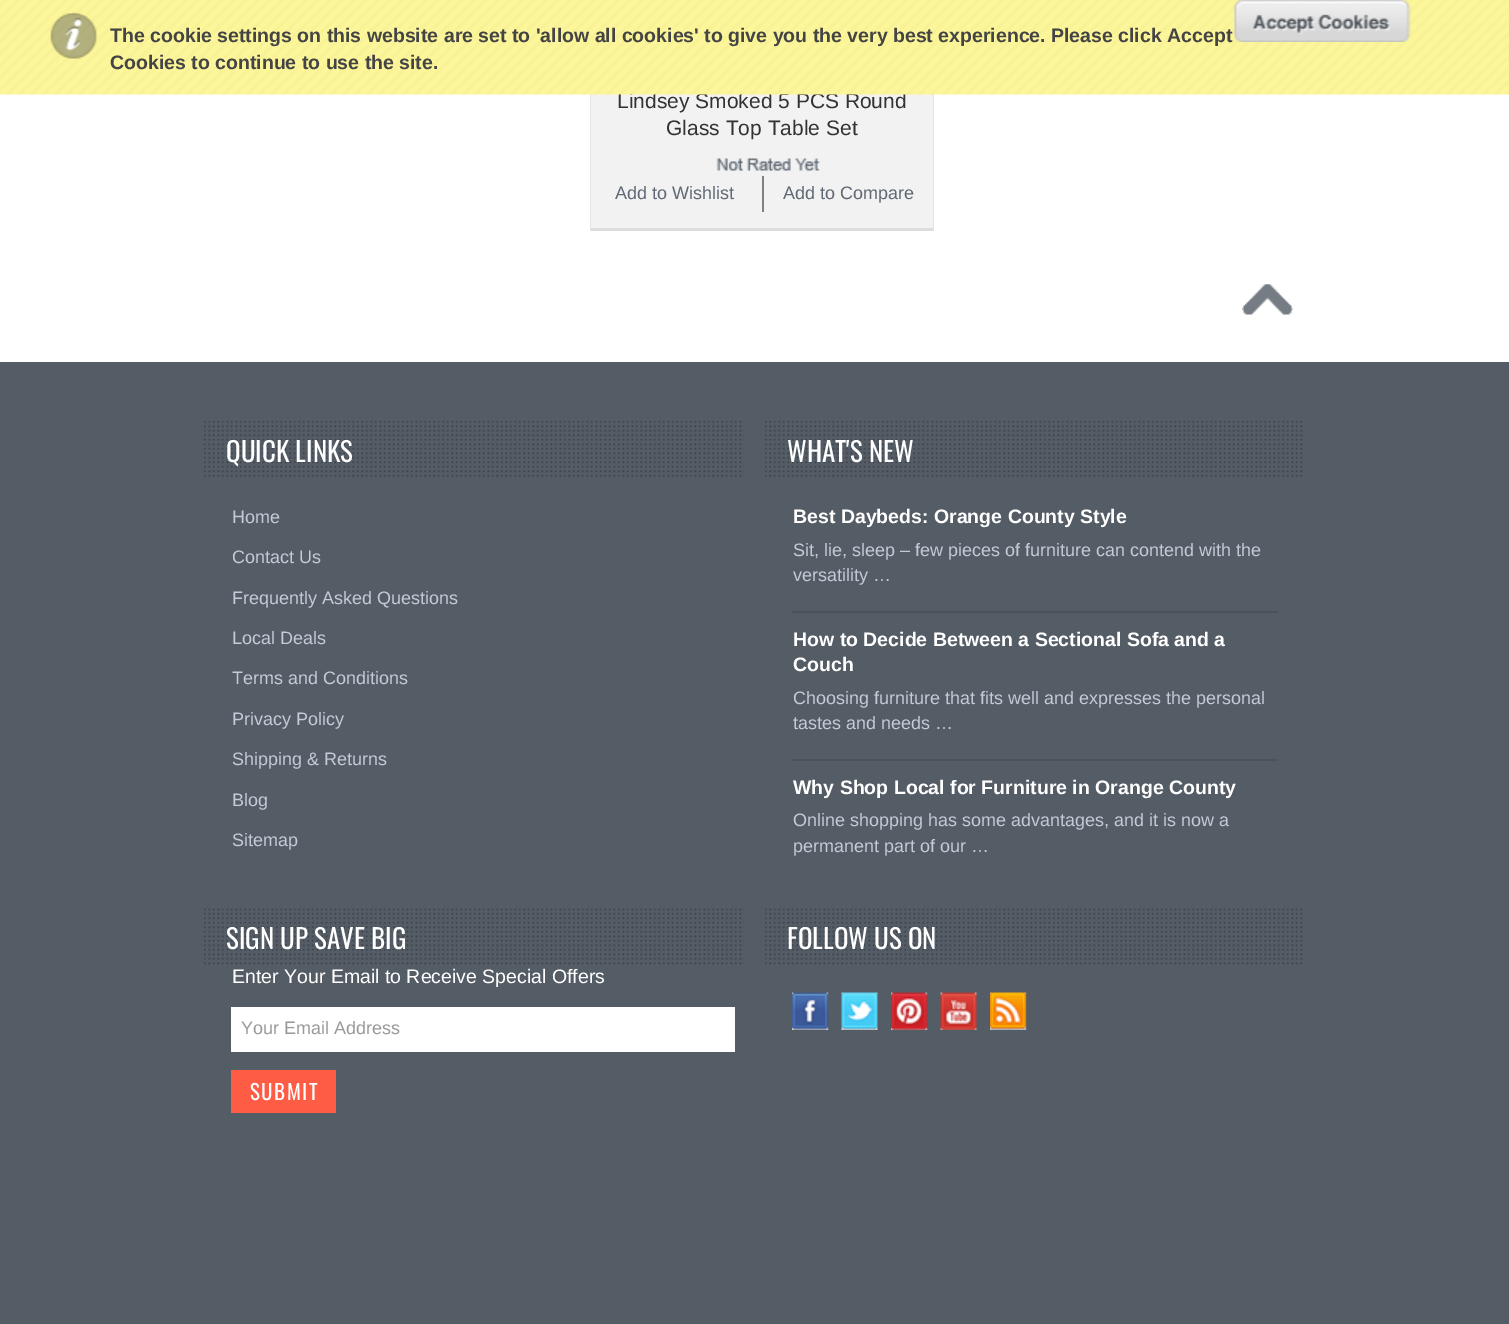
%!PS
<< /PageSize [1509 1324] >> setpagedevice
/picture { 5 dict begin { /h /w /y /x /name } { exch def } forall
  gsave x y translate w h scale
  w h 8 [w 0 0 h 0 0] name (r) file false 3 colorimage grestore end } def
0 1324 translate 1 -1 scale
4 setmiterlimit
1 setgray
0 0 1509 1324 rectfill
0.949 setgray
591 94 342 134 rectfill
0.898 setgray
newpath 934 -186 moveto 934 231 lineto 933 228 lineto 933 -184 lineto closepath fill
0.867 setgray
newpath 934 231 moveto 590 231 lineto 591 228 lineto 933 228 lineto closepath fill
0.898 setgray
newpath 590 231 moveto 590 -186 lineto 591 -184 lineto 591 228 lineto closepath fill
/LiberationSans-Regular [21 0 0 -21 0 0] selectfont
0.2 setgray
617 108 moveto (Lindsey Smoked 5 PCS Round) show
(img1.rgb) 0 0 1509 95 picture
(img2.rgb) 50 12 48 47 picture
/LiberationSans-Bold [19.5 0 0 -19.5 0 0] selectfont
0.267 setgray
110 42 moveto (The cookie settings on this website are set to 'allow all cookies' to give you the very best experience. Please click Accept) show
110 69 moveto (Cookies to continue to use the site.) show
(img3.rgb) 1234 0 177 42 picture
/LiberationSans-Regular [21 0 0 -21 0 0] selectfont
0.2 setgray
666 135 moveto (Glass Top Table Set) show
(img4.rgb) 716 158 104 13 picture
/LiberationSans-Regular [18 0 0 -18 0 0] selectfont
0.373 0.408 0.455 setrgbcolor
615 199 moveto (Add to Wishlist) show
0.502 setgray
762 176 2 36 rectfill
0.373 0.408 0.455 setrgbcolor
783 199 moveto (Add to Compare) show
(img5.rgb) 1242 284 51 31 picture
0.329 0.361 0.4 setrgbcolor
0 362 1509 962 rectfill
(img6.rgb) 204 421 540 56 picture
/Oswald-Regular [27 0 0 -27 0 0] selectfont
1 setgray
226 462 moveto (QUICK LINKS) show
/LiberationSans-Regular [18 0 0 -18 0 0] selectfont
0.765 0.796 0.839 setrgbcolor
232 523 moveto (Home) show
232 563 moveto (Contact Us) show
232 604 moveto (Frequently Asked Questions) show
232 644 moveto (Local Deals) show
232 684 moveto (Terms and Conditions) show
232 725 moveto (Privacy Policy) show
232 765 moveto (Shipping & Returns) show
232 806 moveto (Blog) show
232 846 moveto (Sitemap) show
(img7.rgb) 765 421 538 56 picture
/Oswald-Regular [27 0 0 -27 0 0] selectfont
1 setgray
787 462 moveto (WHAT'S NEW) show
/LiberationSans-Bold [19.5 0 0 -19.5 0 0] selectfont
793 523 moveto (Best Daybeds: Orange County Style) show
/LiberationSans-Regular [18 0 0 -18 0 0] selectfont
0.765 0.796 0.839 setrgbcolor
793 556 moveto (Sit, lie, sleep – few pieces of furniture can contend with the) show
793 581 moveto (versatility …) show
0.294 0.322 0.357 setrgbcolor
792 611 486 2 rectfill
/LiberationSans-Bold [19.5 0 0 -19.5 0 0] selectfont
1 setgray
793 646 moveto (How to Decide Between a Sectional Sofa and a) show
793 671 moveto (Couch) show
/LiberationSans-Regular [18 0 0 -18 0 0] selectfont
0.765 0.796 0.839 setrgbcolor
793 704 moveto (Choosing furniture that fits well and expresses the personal) show
793 729 moveto (tastes and needs …) show
0.294 0.322 0.357 setrgbcolor
792 759 486 2 rectfill
/LiberationSans-Bold [19.5 0 0 -19.5 0 0] selectfont
1 setgray
793 794 moveto (Why Shop Local for Furniture in Orange County) show
/LiberationSans-Regular [18 0 0 -18 0 0] selectfont
0.765 0.796 0.839 setrgbcolor
793 826 moveto (Online shopping has some advantages, and it is now a) show
793 852 moveto (permanent part of our …) show
(img8.rgb) 204 908 540 57 picture
/Oswald-Regular [27 0 0 -27 0 0] selectfont
1 setgray
226 949 moveto (SIGN UP SAVE BIG) show
/LiberationSans-Regular [19.5 0 0 -19.5 0 0] selectfont
232 983 moveto (Enter Your Email to Receive Special Offers) show
231 1007 504 45 rectfill
/LiberationSans-Regular [18 0 0 -18 0 0] selectfont
0.6 setgray
241 1034 moveto (Your Email Address) show
1 0.361 0.275 setrgbcolor
231 1070 105 43 rectfill
/Oswald-Regular [21 0 0 -21 0 0] selectfont
1 setgray
250 1100 moveto 1.5 0 (SUBMIT) ashow
(img9.rgb) 765 908 538 57 picture
/Oswald-Regular [27 0 0 -27 0 0] selectfont
787 949 moveto (FOLLOW US ON) show
(img10.rgb) 792 992 37 38 picture
(img11.rgb) 841 992 37 38 picture
(img12.rgb) 891 992 37 38 picture
(img13.rgb) 940 992 37 38 picture
(img14.rgb) 990 992 37 38 picture
showpage
